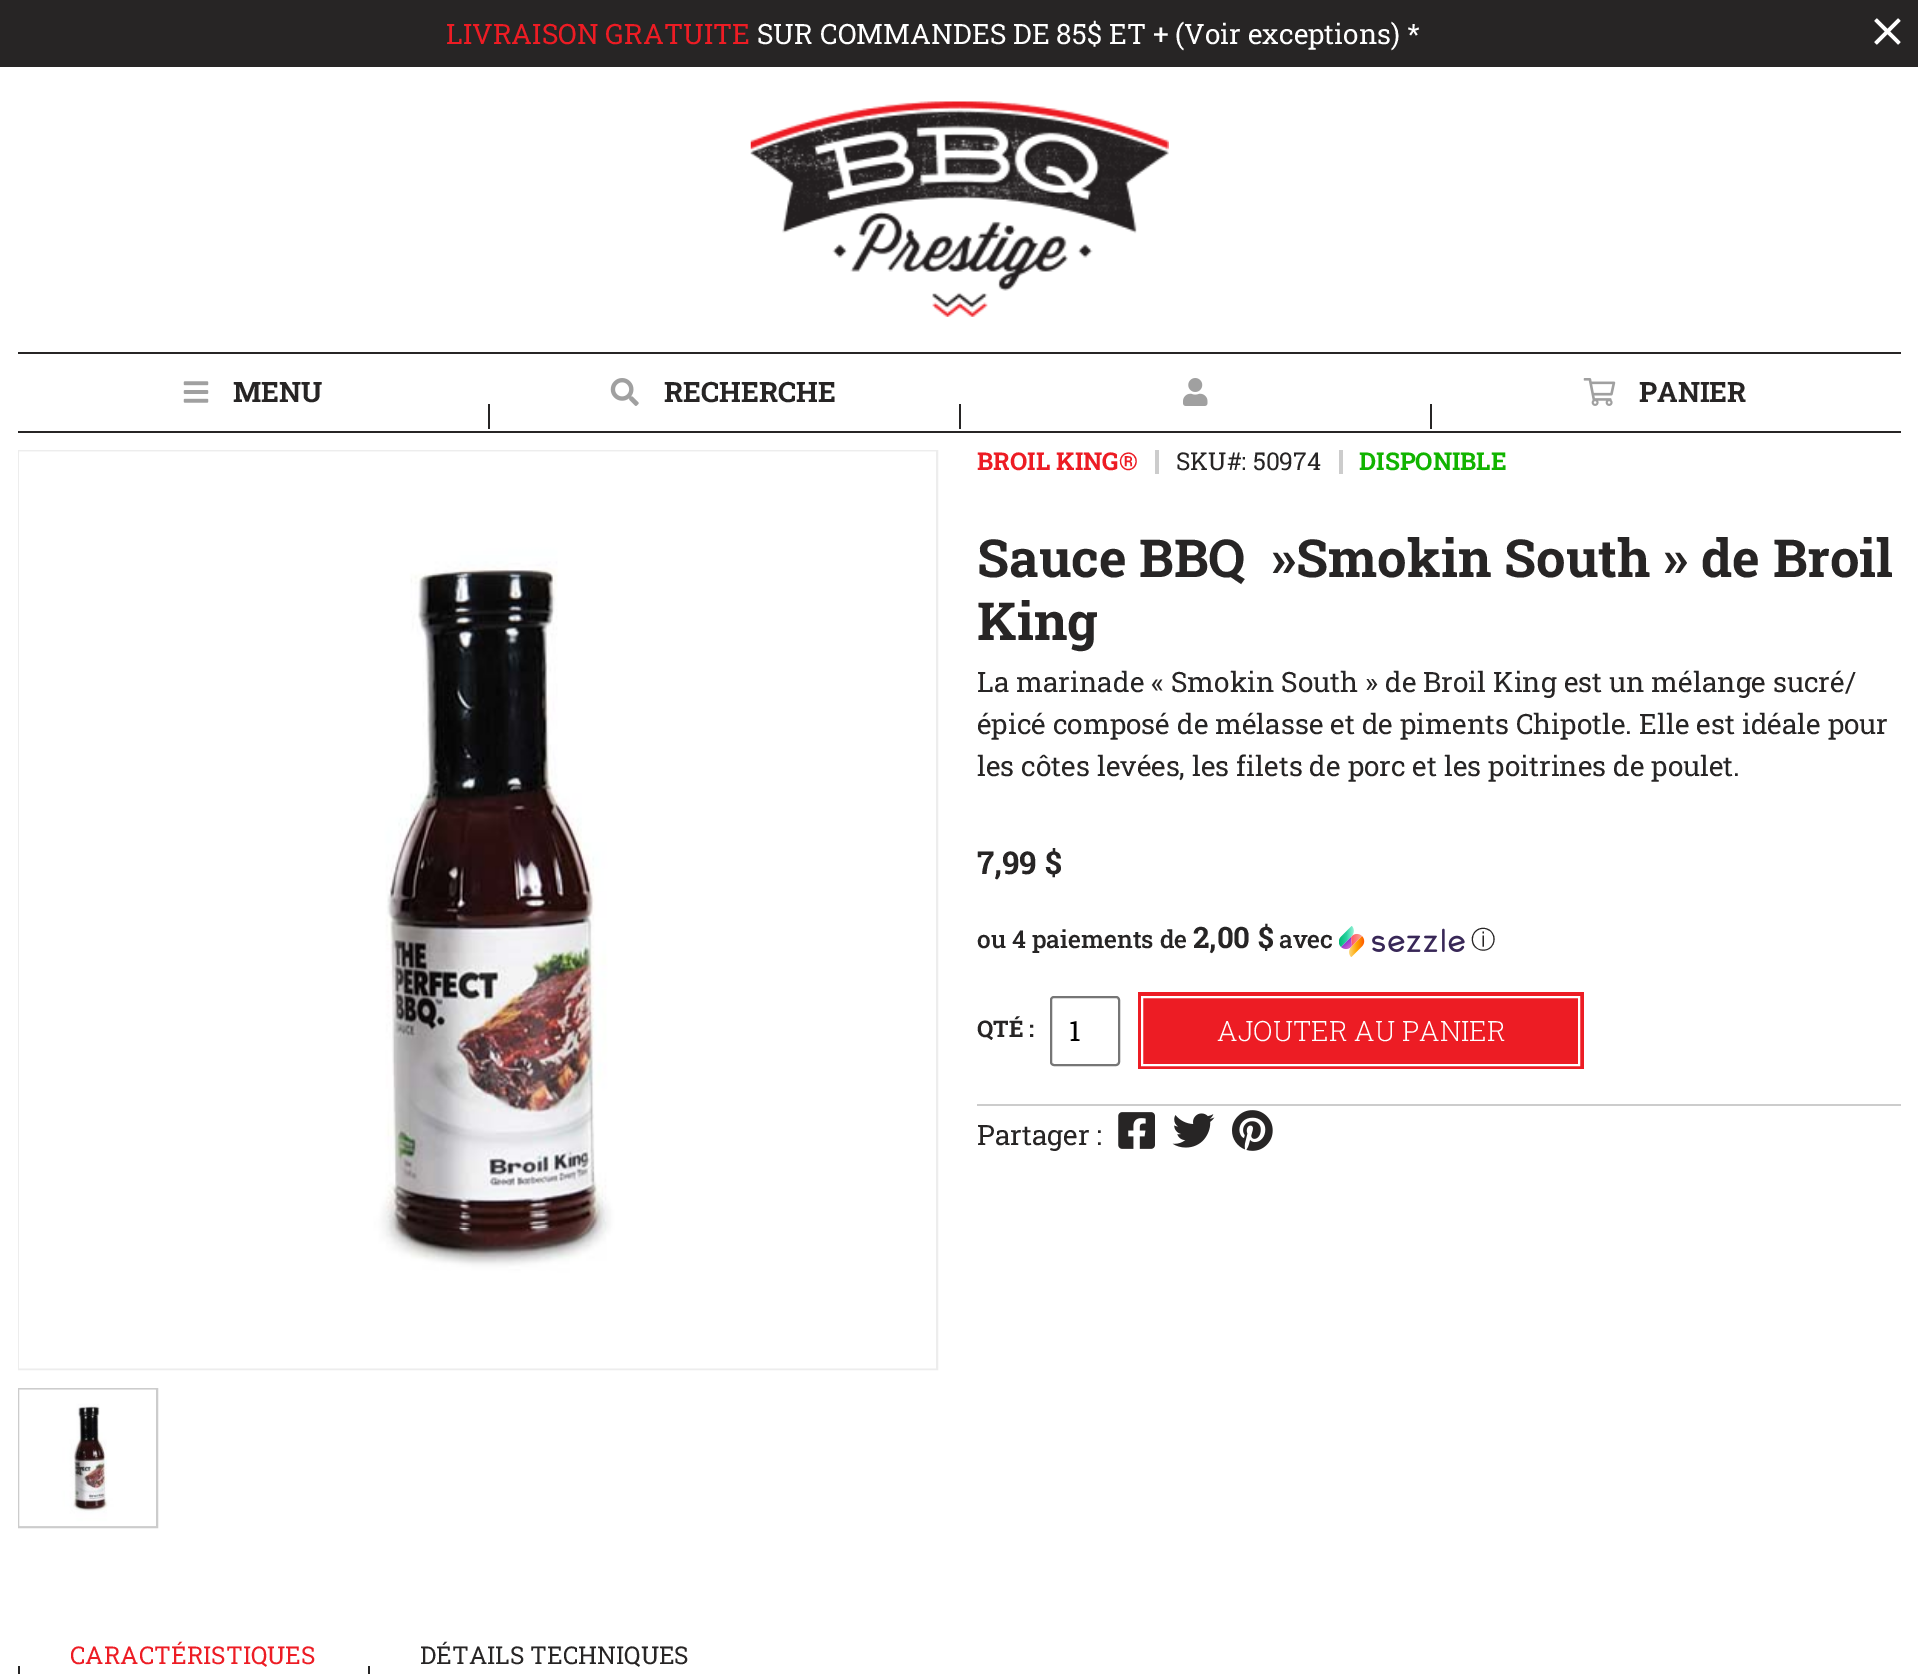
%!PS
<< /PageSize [1918 1674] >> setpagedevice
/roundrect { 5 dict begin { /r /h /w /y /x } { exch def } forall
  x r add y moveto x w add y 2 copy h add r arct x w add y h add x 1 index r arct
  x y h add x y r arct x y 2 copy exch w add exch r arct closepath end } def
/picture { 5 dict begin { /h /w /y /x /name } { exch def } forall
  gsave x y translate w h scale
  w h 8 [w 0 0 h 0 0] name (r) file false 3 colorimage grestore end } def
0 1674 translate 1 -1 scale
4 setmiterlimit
1 setgray
0 0 1918 1674 rectfill
0.153 0.145 0.145 setrgbcolor
0 0 1918 67 rectfill
/RobotoSlab-Regular [28 0 0 -28 0 0] selectfont
0.929 0.11 0.141 setrgbcolor
446 44 moveto (LIVRAISON GRATUITE) show
1 setgray
757 44 moveto (SUR COMMANDES DE 85$ ET + \(Voir exceptions\) *) show
(img1.rgb) 1874 18 27 27 picture
(img2.rgb) 750 101 419 216 picture
0.153 0.145 0.145 setrgbcolor
18 352 1883 2 rectfill
18 431 1883 2 rectfill
(img3.rgb) 183 381 26 22 picture
/RobotoSlab-Bold [28 0 0 -28 0 0] selectfont
233 402 moveto (MENU) show
(img4.rgb) 610 378 29 28 picture
664 402 moveto (RECHERCHE) show
488 404 2 25 rectfill
(img5.rgb) 1183 378 25 28 picture
959 404 2 25 rectfill
(img6.rgb) 1583 378 33 28 picture
1639 402 moveto (PANIER) show
1430 404 2 25 rectfill
0.929 setgray
2 setlinewidth
19 451 918 918 rectstroke
(img7.rgb) 19 451 917 918 picture
0.8 setgray
19 1389 138 138 rectstroke
(img8.rgb) 19 1389 137 138 picture
1155 450 4 24 rectfill
/RobotoSlab-Bold [24.5 0 0 -24.5 0 0] selectfont
0.929 0.11 0.141 setrgbcolor
977 470 moveto (BROIL KING®) show
0.8 setgray
1339 450 4 24 rectfill
/RobotoSlab-Regular [24.5 0 0 -24.5 0 0] selectfont
0.153 0.145 0.145 setrgbcolor
1176 470 moveto (SKU#: 50974) show
/RobotoSlab-Bold [24.5 0 0 -24.5 0 0] selectfont
0.067 0.706 0 setrgbcolor
1359 470 moveto (DISPONIBLE) show
/RobotoSlab-Bold [52.5 0 0 -52.5 0 0] selectfont
0.153 0.145 0.145 setrgbcolor
977 577 moveto (Sauce BBQ  »Smokin South » de Broil) show
977 640 moveto (King) show
/RobotoSlab-Regular [28 0 0 -28 0 0] selectfont
977 692 moveto (La marinade « Smokin South » de Broil King est un mélange sucré/) show
977 734 moveto (épicé composé de mélasse et de piments Chipotle. Elle est idéale pour) show
977 776 moveto (les côtes levées, les filets de porc et les poitrines de poulet.) show
/RobotoSlab-Bold [31.5 0 0 -31.5 0 0] selectfont
977 874 moveto (7,99 $) show
/RobotoSlab-Medium [24.5 0 0 -24.5 0 0] selectfont
977 948 moveto (ou 4 paiements de) show
/RobotoSlab-Bold [29.5 0 0 -29.5 0 0] selectfont
1193 948 moveto (2,00 $) show
/RobotoSlab-Medium [24.5 0 0 -24.5 0 0] selectfont
1279 948 moveto (avec) show
(img9.rgb) 1339 926 126 31 picture
/WenQuanYiZenHei-Medium [24.5 0 0 -24.5 0 0] selectfont
1471 948 moveto (ⓘ) show
/RobotoSlab-Bold [23 0 0 -23 0 0] selectfont
977 1037 moveto (QTÉ :) show
0.463 setgray
1051 997 68 68 3 roundrect stroke
/RobotoSlab-Regular [28 0 0 -28 0 0] selectfont
0 setgray
1069 1041 moveto (1) show
0.929 0.11 0.141 setrgbcolor
1138 992 446 77 rectfill
1 setgray
1142 997 437 68 rectstroke
/RobotoSlab-Light [28 0 0 -28 0 0] selectfont
1217 1041 moveto (AJOUTER AU PANIER) show
0.8 setgray
977 1104 924 2 rectfill
/RobotoSlab-Regular [28 0 0 -28 0 0] selectfont
0.153 0.145 0.145 setrgbcolor
977 1145 moveto (Partager :) show
(img10.rgb) 1118 1112 37 37 picture
(img11.rgb) 1172 1113 43 35 picture
(img12.rgb) 1232 1110 41 41 picture
/RobotoSlab-Regular [24.5 0 0 -24.5 0 0] selectfont
0.929 0.11 0.141 setrgbcolor
70 1664 moveto (CARACTÉRISTIQUES) show
0.153 0.145 0.145 setrgbcolor
18 1666 2 8 rectfill
420 1664 moveto (DÉTAILS TECHNIQUES) show
368 1666 2 8 rectfill
showpage
